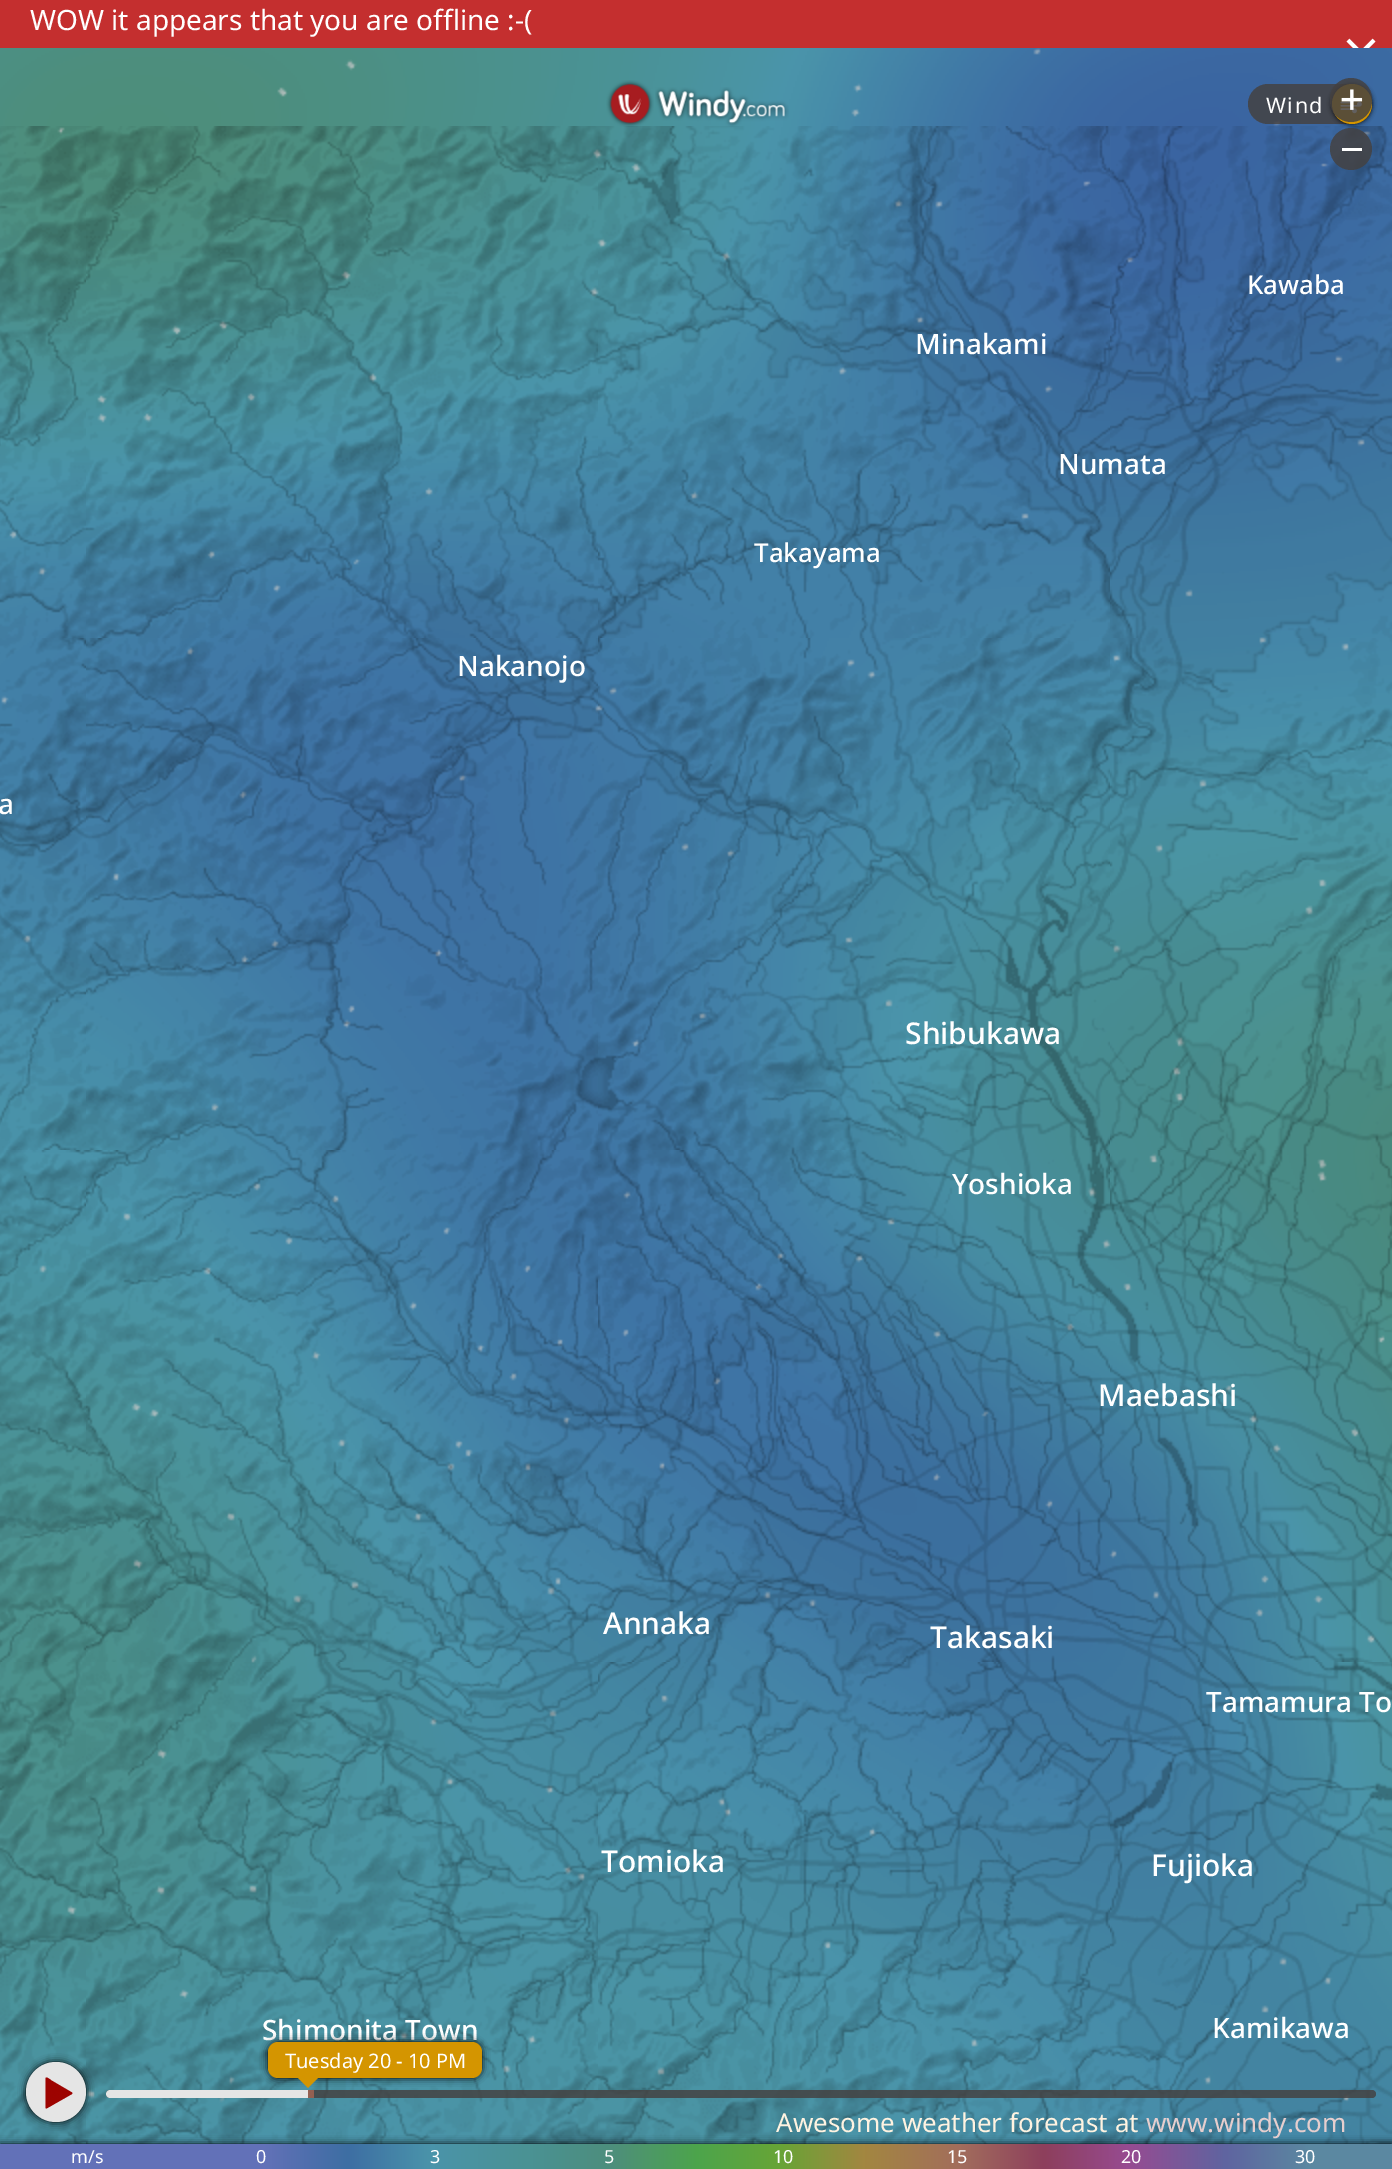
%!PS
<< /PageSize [1392 2169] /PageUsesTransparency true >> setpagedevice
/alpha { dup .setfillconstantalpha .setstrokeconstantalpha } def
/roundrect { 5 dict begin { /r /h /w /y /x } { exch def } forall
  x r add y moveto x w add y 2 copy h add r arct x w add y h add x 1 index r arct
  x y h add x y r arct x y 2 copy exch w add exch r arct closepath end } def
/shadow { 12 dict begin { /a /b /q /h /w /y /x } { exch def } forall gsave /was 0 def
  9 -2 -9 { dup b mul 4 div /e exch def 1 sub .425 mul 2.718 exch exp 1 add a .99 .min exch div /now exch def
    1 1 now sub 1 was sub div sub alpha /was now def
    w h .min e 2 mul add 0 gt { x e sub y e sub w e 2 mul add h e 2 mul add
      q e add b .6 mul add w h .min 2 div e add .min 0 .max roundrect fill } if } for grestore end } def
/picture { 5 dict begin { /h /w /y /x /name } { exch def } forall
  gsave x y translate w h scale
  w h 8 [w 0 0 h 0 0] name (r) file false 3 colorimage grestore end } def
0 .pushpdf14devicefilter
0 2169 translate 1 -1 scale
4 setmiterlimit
1 setgray
0 0 1392 2169 rectfill
0.769 0.184 0.184 setrgbcolor
0 0 1392 48 rectfill
/NotoSans-Regular [28 0 0 -28 0 0] selectfont
1 setgray
30 30 moveto (WOW it appears that you are offline :-\() show
(img1.rgb) 1346 38 30 10 picture
(img8.rgb) 598 48 512 78 picture
(img12.rgb) 598 126 512 512 picture
(img6.rgb) 0 48 86 78 picture
(img7.rgb) 86 48 512 78 picture
(img9.rgb) 1110 48 282 78 picture
(img10.rgb) 0 126 86 512 picture
(img11.rgb) 86 126 512 512 picture
(img13.rgb) 1110 126 282 512 picture
(img14.rgb) 0 638 86 512 picture
(img15.rgb) 86 638 512 512 picture
(img16.rgb) 598 638 512 512 picture
(img17.rgb) 1110 638 282 512 picture
(img18.rgb) 0 1150 86 512 picture
(img19.rgb) 86 1150 512 512 picture
(img20.rgb) 598 1150 512 512 picture
(img21.rgb) 1110 1150 282 512 picture
(img22.rgb) 0 1662 86 482 picture
(img23.rgb) 86 1662 512 482 picture
(img24.rgb) 598 1662 512 482 picture
(img25.rgb) 1110 1662 282 482 picture
(img26.rgb) 1 48 1384 2055 picture
(img29.rgb) 598 126 512 512 picture
(img2.rgb) 606 80 48 47 picture
(img3.rgb) 655 87 134 40 picture
0.84 alpha
0.267 0.255 0.255 setrgbcolor
1248 84 124 40 20 roundrect fill
/NotoSans-Regular [21.5 0 0 -21.5 0 0] selectfont
1 alpha
1 setgray
1266 113 moveto 1.5 0 (Wind) ashow
(img30.rgb) 1110 126 282 512 picture
0 setgray
1332 84 40 40 20 2.5 1 shadow
0.831 0.584 0 setrgbcolor
newpath 1352 104 20 0 360 arc closepath fill
(img4.rgb) 1340 101 22 13 picture
0.84 alpha
0.267 0.255 0.255 setrgbcolor
1330 78 42 44 21 roundrect fill
1 alpha
(img5.rgb) 1341 89 22 21 picture
0.84 alpha
newpath 1351 149 21 0 360 arc closepath fill
1 alpha
1 setgray
1342 148 20 3 rectfill
(img27.rgb) 0 126 86 512 picture
(img28.rgb) 86 126 512 512 picture
(img31.rgb) 0 638 86 512 picture
(img32.rgb) 86 638 512 512 picture
(img33.rgb) 598 638 512 512 picture
(img34.rgb) 1110 638 282 512 picture
(img35.rgb) 0 1150 86 512 picture
(img36.rgb) 86 1150 512 512 picture
(img37.rgb) 598 1150 512 512 picture
(img38.rgb) 1110 1150 282 512 picture
(img39.rgb) 0 1662 86 482 picture
(img40.rgb) 86 1662 512 482 picture
(img41.rgb) 598 1662 512 482 picture
(img42.rgb) 1110 1662 282 482 picture
/NotoSans-Medium [28 0 0 -28 0 0] selectfont
915 354 moveto (Minakami) show
/NotoSans-Medium [26 0 0 -26 0 0] selectfont
754 562 moveto (Takayama) show
1247 294 moveto (Kawaba) show
/NotoSans-Medium [28 0 0 -28 0 0] selectfont
1058 474 moveto (Numata) show
457 676 moveto (Nakanojo) show
-2 814 moveto (a) show
/NotoSans-Medium [30 0 0 -30 0 0] selectfont
905 1044 moveto (Shibukawa) show
/NotoSans-Medium [28 0 0 -28 0 0] selectfont
952 1194 moveto (Yoshioka) show
/NotoSans-Medium [30 0 0 -30 0 0] selectfont
603 1634 moveto (Annaka) show
930 1648 moveto (Takasaki) show
1098 1406 moveto (Maebashi) show
601 1872 moveto (Tomioka) show
/NotoSans-Medium [28 0 0 -28 0 0] selectfont
1206 1712 moveto (Tamamura To) show
/NotoSans-Medium [30 0 0 -30 0 0] selectfont
1151 1876 moveto (Fujioka) show
/NotoSans-Medium [28 0 0 -28 0 0] selectfont
1212 2038 moveto (Kamikawa) show
262 2040 moveto (Shimonita Town) show
0 setgray
26 2062 60 60 30 4 1 shadow
0.898 setgray
newpath 56 2092 30 0 360 arc closepath fill
0.616 0.012 0 setrgbcolor
newpath 72.5 2093 moveto 72 2092.5 lineto 51.5 2080.5 lineto 49.5 2079 46.5 2076.5 45.5 2078 curveto 45.5 2107.5 lineto 45.5 2108 46 2108.5 46.5 2108.5 curveto 72 2094 lineto closepath fill
0 setgray
268 2042 214 36 10 4 1 shadow
0.831 0.584 0 setrgbcolor
268 2042 214 36 10 roundrect fill
/NotoSans-Regular [20 0 0 -20 0 0] selectfont
1 setgray
285 2068 moveto (Tuesday 20 - 10 PM) show
0.831 0.584 0 setrgbcolor
newpath 298 2078 moveto 318 2078 lineto 308 2088 lineto closepath fill
0.84 alpha
0.267 0.255 0.255 setrgbcolor
106 2090 1270 8 4 roundrect fill
1 alpha
0.898 setgray
newpath 110 2090 moveto 308 2090 lineto 308 2098 lineto 110 2098 lineto 108 2098 106 2096 106 2094 curveto 106 2092 108 2090 110 2090 curveto closepath fill
0.58 0.376 0.318 setrgbcolor
308 2090 6 8 rectfill
0 setgray
0 2144 1392 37 0 4 1 shadow
/NotoSans-Regular [26 0 0 -26 0 0] selectfont
1 0.953 0.882 setrgbcolor
776 2132 moveto (Awesome weather forecast at) show
0.902 0.808 0.808 setrgbcolor
1146 2132 moveto (www.windy.com) show
gsave newpath 0 2144 moveto 1392 2144 lineto 1392 2169 lineto 0 2169 lineto closepath clip newpath
<< /ShadingType 2 /ColorSpace /DeviceRGB /Coords [0 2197 1392 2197] /Extend [true true] /Function << /FunctionType 3 /Domain [0 1] /Functions [<< /FunctionType 2 /Domain [0 1] /C0 [0.384 0.443 0.722] /C1 [0.384 0.443 0.722] /N 1 >> << /FunctionType 2 /Domain [0 1] /C0 [0.384 0.443 0.722] /C1 [0.239 0.431 0.639] /N 1 >> << /FunctionType 2 /Domain [0 1] /C0 [0.239 0.431 0.639] /C1 [0.29 0.58 0.667] /N 1 >> << /FunctionType 2 /Domain [0 1] /C0 [0.29 0.58 0.667] /C1 [0.29 0.573 0.58] /N 1 >> << /FunctionType 2 /Domain [0 1] /C0 [0.29 0.573 0.58] /C1 [0.302 0.557 0.486] /N 1 >> << /FunctionType 2 /Domain [0 1] /C0 [0.302 0.557 0.486] /C1 [0.298 0.643 0.298] /N 1 >> << /FunctionType 2 /Domain [0 1] /C0 [0.298 0.643 0.298] /C1 [0.404 0.643 0.212] /N 1 >> << /FunctionType 2 /Domain [0 1] /C0 [0.404 0.643 0.212] /C1 [0.635 0.529 0.251] /N 1 >> << /FunctionType 2 /Domain [0 1] /C0 [0.635 0.529 0.251] /C1 [0.635 0.427 0.361] /N 1 >> << /FunctionType 2 /Domain [0 1] /C0 [0.635 0.427 0.361] /C1 [0.553 0.247 0.361] /N 1 >> << /FunctionType 2 /Domain [0 1] /C0 [0.553 0.247 0.361] /C1 [0.592 0.294 0.569] /N 1 >> << /FunctionType 2 /Domain [0 1] /C0 [0.592 0.294 0.569] /C1 [0.373 0.392 0.627] /N 1 >> << /FunctionType 2 /Domain [0 1] /C0 [0.373 0.392 0.627] /C1 [0.357 0.533 0.631] /N 1 >> << /FunctionType 2 /Domain [0 1] /C0 [0.357 0.533 0.631] /C1 [0.357 0.533 0.631] /N 1 >>] /Bounds [0.19 0.25 0.31 0.38 0.44 0.5 0.56 0.62 0.69 0.75 0.81 0.88 0.94] /Encode [0 1 0 1 0 1 0 1 0 1 0 1 0 1 0 1 0 1 0 1 0 1 0 1 0 1 0 1] >> >> shfill grestore
/NotoSans-Regular [18 0 0 -18 0 0] selectfont
1 setgray
71 2163 moveto (m/s) show
256 2163 moveto (0) show
430 2163 moveto (3) show
604 2163 moveto (5) show
773 2163 moveto (10) show
947 2163 moveto (15) show
1121 2163 moveto (20) show
1295 2163 moveto (30) show
.poppdf14devicefilter showpage
